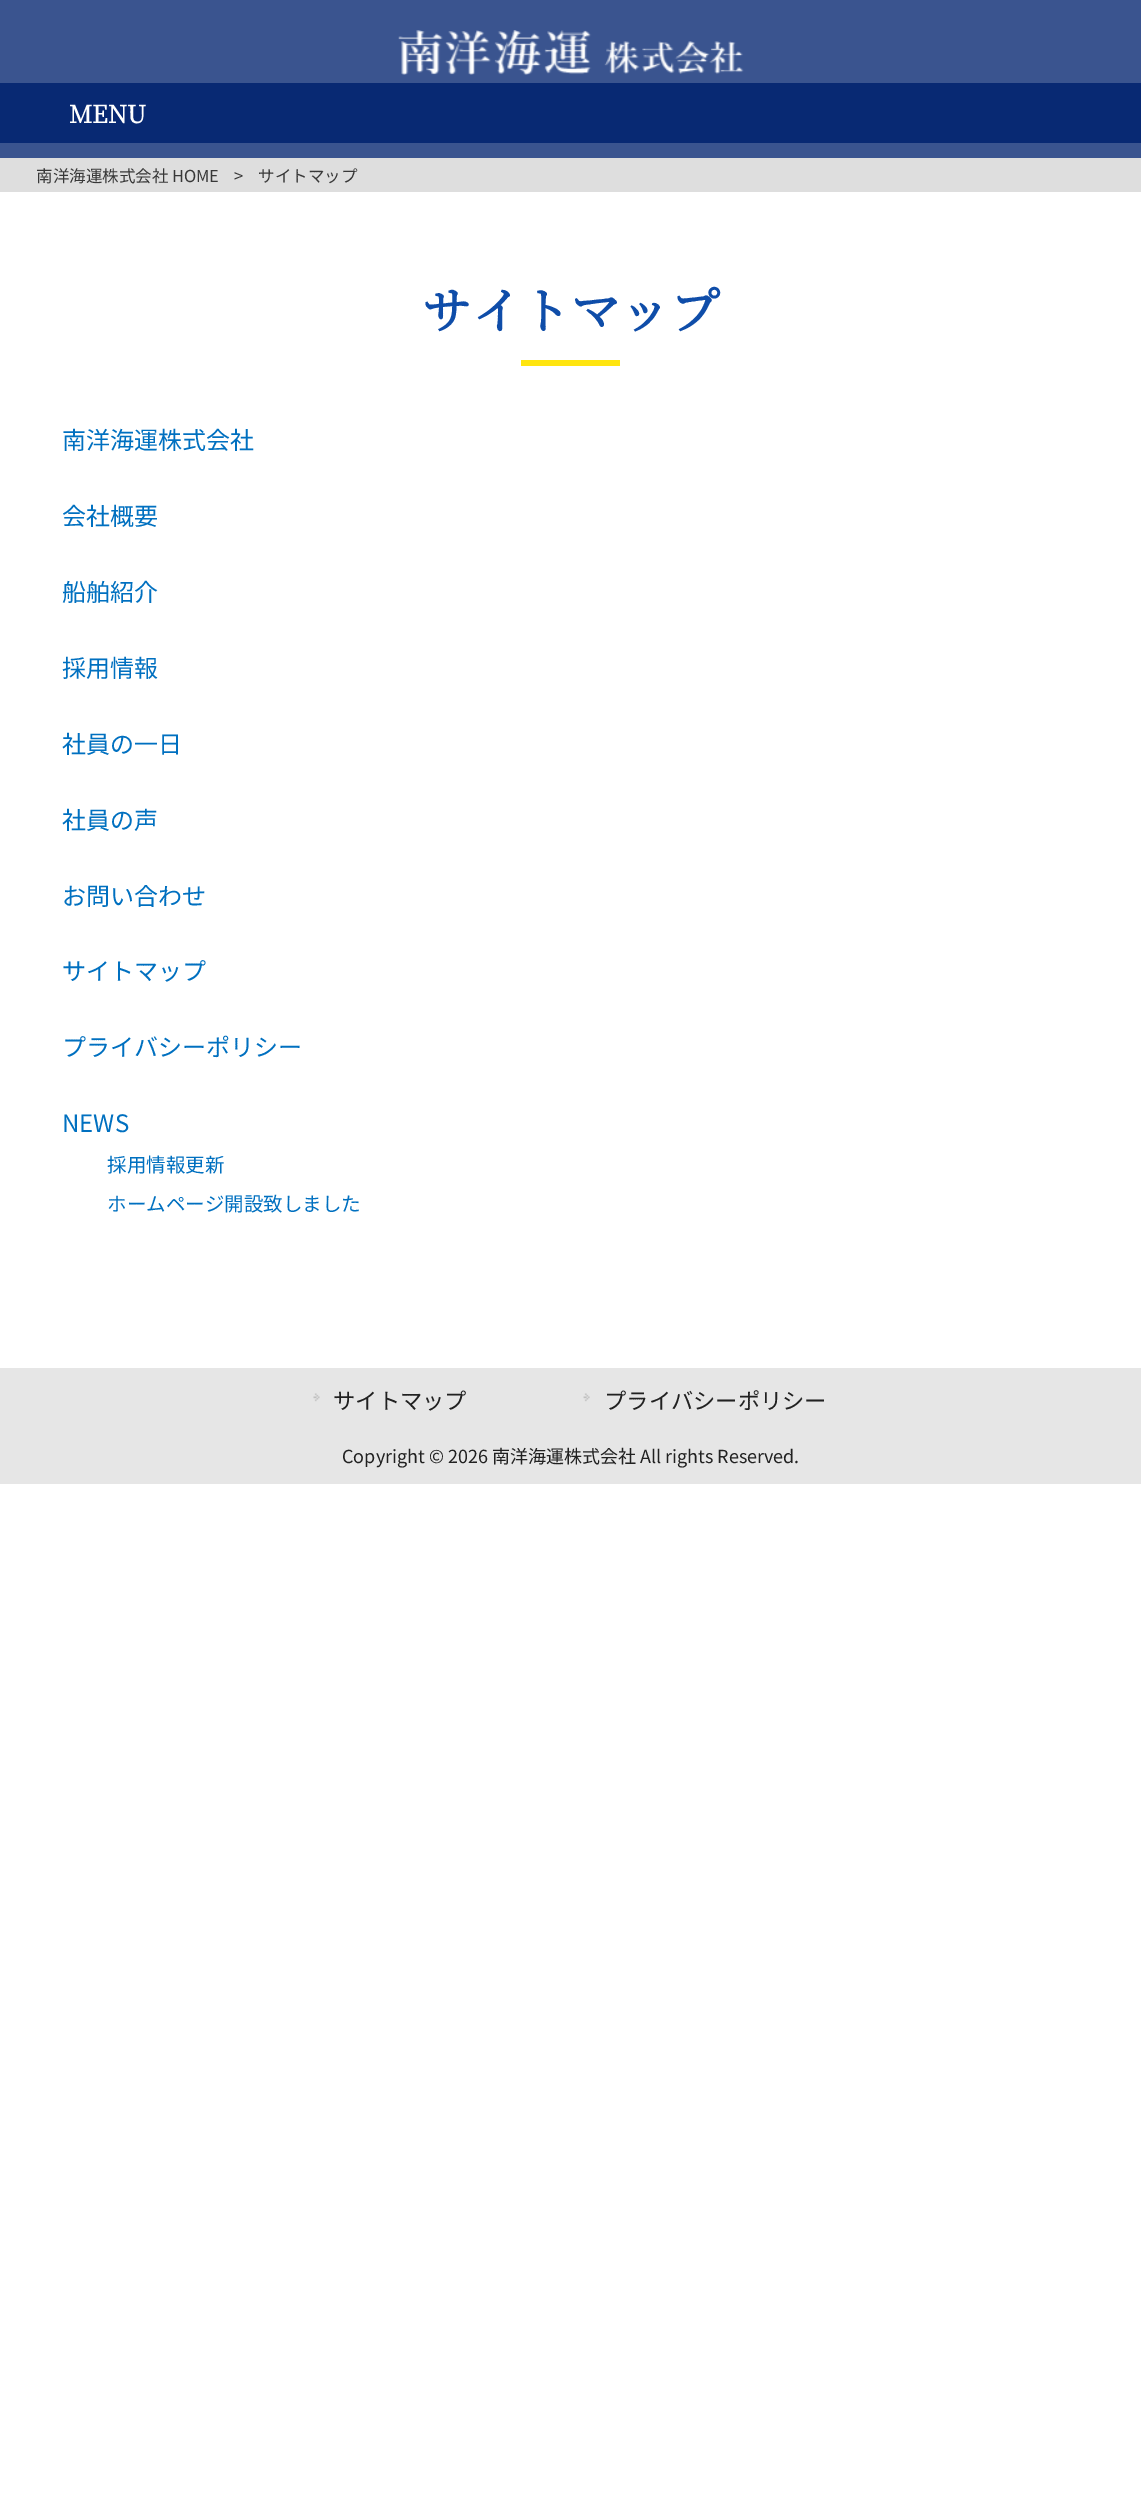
%!PS
<< /PageSize [1141 2519] >> setpagedevice
/picture { 5 dict begin { /h /w /y /x /name } { exch def } forall
  gsave x y translate w h scale
  w h 8 [w 0 0 h 0 0] name (r) file false 3 colorimage grestore end } def
0 2519 translate 1 -1 scale
4 setmiterlimit
1 setgray
0 0 1141 2519 rectfill
0.227 0.329 0.561 setrgbcolor
0 0 1141 158 rectfill
(img1.rgb) 398 30 346 45 picture
0.031 0.161 0.451 setrgbcolor
0 83 1141 60 rectfill
/NotoSerifJP-Bold [24 0 0 -24 0 0] selectfont
1 setgray
69 123 moveto (MENU) show
0.871 setgray
0 158 1141 34 rectfill
/NotoSansJP-Thin [16.5 0 0 -16.5 0 0] selectfont
0.22 setgray
36 182 moveto (南洋海運株式会社 HOME) show
234 182 moveto (>) show
258 182 moveto (サイトマップ) show
/NotoSerifJP-Bold [49.5 0 0 -49.5 0 0] selectfont
0.059 0.302 0.663 setrgbcolor
422 329 moveto (サイトマップ) show
1 0.898 0.059 setrgbcolor
521 360 99 6 rectfill
/NotoSansJP-Thin [24 0 0 -24 0 0] selectfont
0 0.439 0.753 setrgbcolor
62 449 moveto (南洋海運株式会社) show
62 525 moveto (会社概要) show
62 601 moveto (船舶紹介) show
62 677 moveto (採用情報) show
62 753 moveto (社員の一日) show
62 829 moveto (社員の声) show
62 905 moveto (お問い合わせ) show
62 980 moveto (サイトマップ) show
62 1056 moveto (プライバシーポリシー) show
62 1132 moveto (NEWS) show
/NotoSansJP-Thin [19.5 0 0 -19.5 0 0] selectfont
107 1172 moveto (採用情報更新) show
107 1211 moveto (ホームページ開設致しました) show
0.902 setgray
0 1368 1141 116 rectfill
(img2.rgb) 313 1393 7 9 picture
/NotoSansJP-Thin [22.25 0 0 -22.25 0 0] selectfont
0.129 setgray
333 1409 moveto (サイトマップ) show
(img3.rgb) 583 1393 7 9 picture
604 1409 moveto (プライバシーポリシー) show
/NotoSansJP-Thin [18 0 0 -18 0 0] selectfont
342 1463 moveto (Copyright © 2026 南洋海運株式会社 All rights Reserved.) show
showpage
